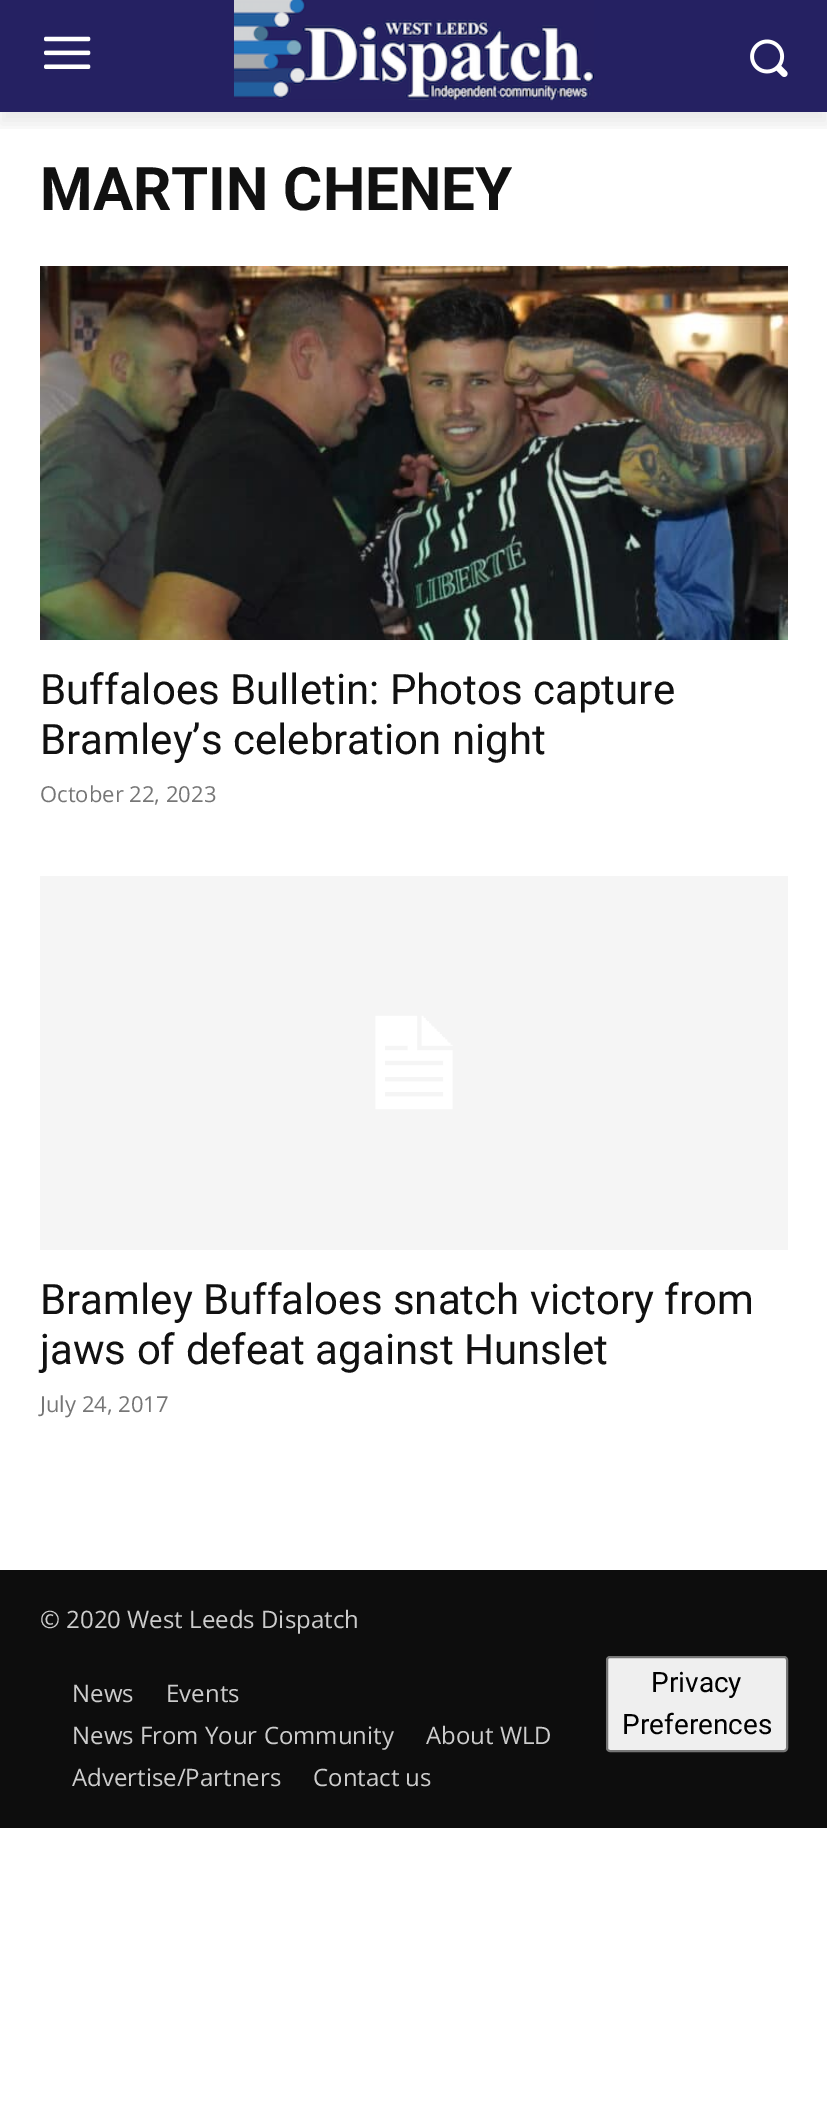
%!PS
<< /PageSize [827 2116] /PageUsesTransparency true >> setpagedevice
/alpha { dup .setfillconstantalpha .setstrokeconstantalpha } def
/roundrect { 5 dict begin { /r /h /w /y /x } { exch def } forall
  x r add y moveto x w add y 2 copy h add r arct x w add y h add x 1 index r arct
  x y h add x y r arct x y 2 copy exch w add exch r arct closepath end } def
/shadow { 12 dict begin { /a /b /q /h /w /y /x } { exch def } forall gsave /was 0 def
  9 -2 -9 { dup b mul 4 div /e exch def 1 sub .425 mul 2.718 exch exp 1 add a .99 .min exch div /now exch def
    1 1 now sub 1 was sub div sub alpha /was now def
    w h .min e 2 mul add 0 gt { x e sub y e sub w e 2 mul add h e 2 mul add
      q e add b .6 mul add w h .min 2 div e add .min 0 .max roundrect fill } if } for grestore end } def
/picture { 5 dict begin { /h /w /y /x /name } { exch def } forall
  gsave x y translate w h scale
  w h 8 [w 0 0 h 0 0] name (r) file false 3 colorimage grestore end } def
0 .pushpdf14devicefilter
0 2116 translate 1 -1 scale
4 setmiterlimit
1 setgray
0 0 827 2116 rectfill
0.145 0.129 0.384 setrgbcolor
0 0 827 112 rectfill
(img1.rgb) 44 36 47 33 picture
(img2.rgb) 234 0 360 101 picture
(img3.rgb) 750 39 38 38 picture
gsave
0 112 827 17 rectclip
0 setgray
0 12 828 112 0 8 0.08 shadow
grestore
/Roboto-Bold [60 0 0 -60 0 0] selectfont
0.067 setgray
40 210 moveto (MARTIN CHENEY) show
(img4.rgb) 40 266 748 374 picture
/Roboto-Regular [42 0 0 -42 0 0] selectfont
40 704 moveto (Buffaloes Bulletin: Photos capture) show
40 754 moveto (Bramley’s celebration night) show
/OpenSans-Regular [22 0 0 -22 0 0] selectfont
0.463 setgray
40 802 moveto (October 22, 2023) show
(img5.rgb) 40 876 748 374 picture
/Roboto-Regular [42 0 0 -42 0 0] selectfont
0.067 setgray
40 1314 moveto (Bramley Buffaloes snatch victory from) show
40 1364 moveto (jaws of defeat against Hunslet) show
/OpenSans-Regular [22 0 0 -22 0 0] selectfont
0.463 setgray
40 1412 moveto (July 24, 2017) show
0.051 setgray
0 1570 827 258 rectfill
/OpenSans-Regular [24 0 0 -24 0 0] selectfont
0.8 setgray
40 1628 moveto (© 2020 West Leeds Dispatch) show
72 1702 moveto (News) show
166 1702 moveto (Events) show
72 1744 moveto (News From Your Community) show
426 1744 moveto (About WLD) show
72 1786 moveto (Advertise/Partners) show
313 1786 moveto (Contact us) show
0.937 setgray
607 1657 180 94 3 roundrect gsave fill grestore
0.463 setgray
2 setlinewidth
stroke
/Roboto-Regular [28 0 0 -28 0 0] selectfont
0 setgray
651 1692 moveto (Privacy) show
622 1734 moveto (Preferences) show
.poppdf14devicefilter showpage
